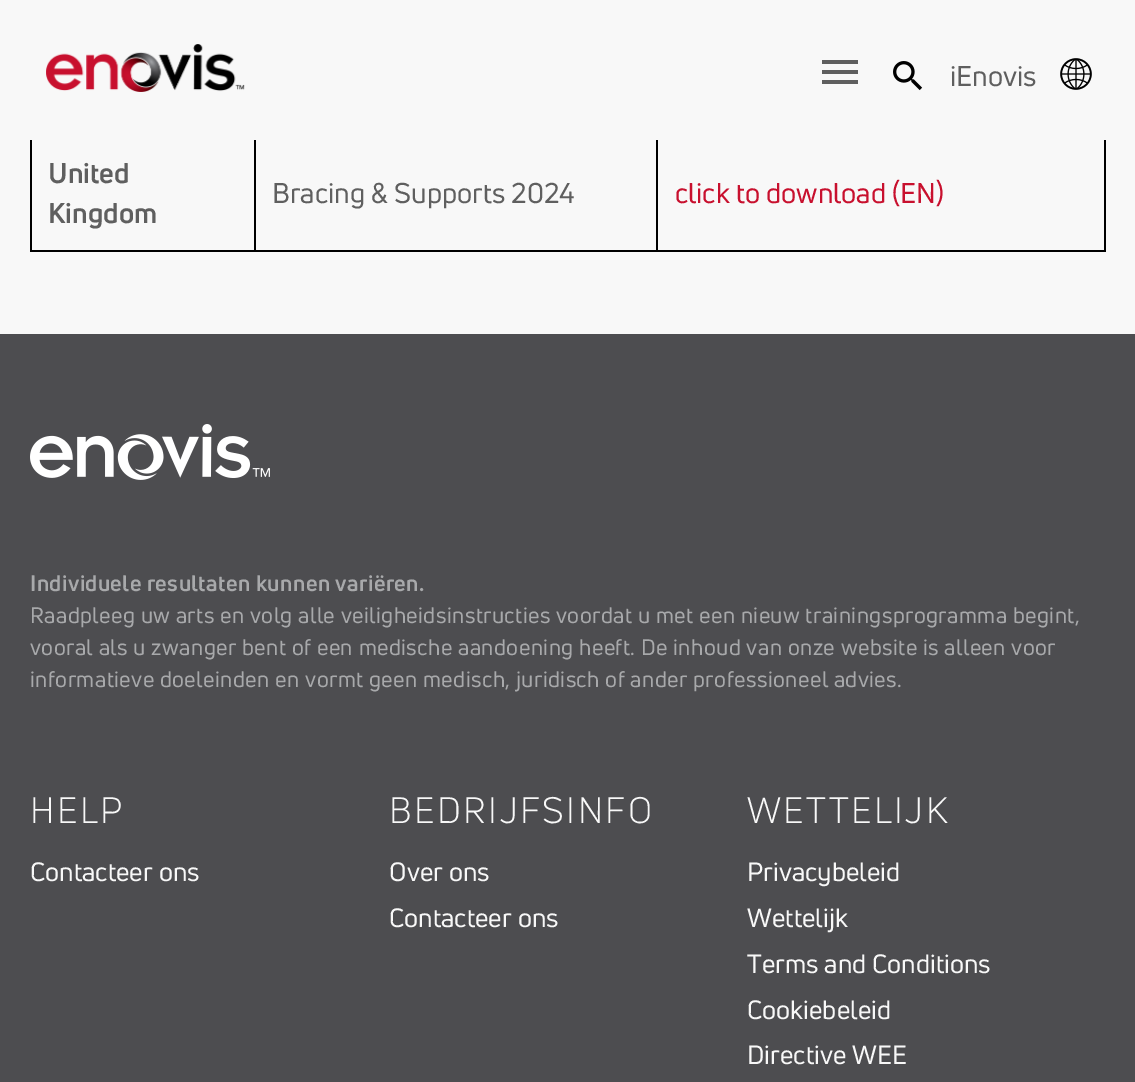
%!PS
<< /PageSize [1135 1082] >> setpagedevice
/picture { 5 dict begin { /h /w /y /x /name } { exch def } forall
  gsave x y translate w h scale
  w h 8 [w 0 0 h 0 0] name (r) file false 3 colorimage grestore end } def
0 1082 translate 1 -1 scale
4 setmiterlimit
0.973 setgray
0 0 1135 1082 rectfill
0 setgray
1104 140 2 112 rectfill
30 250 1076 2 rectfill
254 134 2 118 rectfill
656 134 2 118 rectfill
0.973 setgray
254 134 404 6 rectfill
(img1.rgb) 46 44 199 48 picture
0.373 setgray
newpath 822 84 moveto 858 84 lineto 858 80 lineto 822 80 lineto closepath 822 74 moveto 858 74 lineto 858 70 lineto 822 70 lineto closepath 822 60 moveto 822 64 lineto 858 64 lineto 858 60 lineto closepath fill
(img2.rgb) 893 61 30 30 picture
/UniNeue-Regular [28 0 0 -28 0 0] selectfont
950 86 moveto (iEnovis) show
(img3.rgb) 1060 58 32 32 picture
0 setgray
30 140 2 112 rectfill
/UniNeue-Bold [28 0 0 -28 0 0] selectfont
0.373 setgray
48 183 moveto (United) show
48 223 moveto (Kingdom) show
/UniNeue-Regular [28 0 0 -28 0 0] selectfont
272 203 moveto (Bracing & Supports 2024) show
0.784 0.063 0.18 setrgbcolor
675 203 moveto (click to download \(EN\)) show
0.302 0.302 0.314 setrgbcolor
0 334 1135 748 rectfill
(img4.rgb) 30 424 240 56 picture
/UniNeue-Bold [22 0 0 -22 0 0] selectfont
0.659 0.663 0.671 setrgbcolor
30 591 moveto 0.44 0 (Individuele resultaten kunnen variëren.) ashow
/UniNeue-Regular [22 0 0 -22 0 0] selectfont
30 623 moveto 0.44 0 (Raadpleeg uw arts en volg alle veiligheidsinstructies voordat u met een nieuw trainingsprogramma begint,) ashow
30 655 moveto 0.44 0 (vooral als u zwanger bent of een medische aandoening heeft. De inhoud van onze website is alleen voor) ashow
30 687 moveto 0.44 0 (informatieve doeleinden en vormt geen medisch, juridisch of ander professioneel advies.) ashow
/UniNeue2-Regular [36 0 0 -36 0 0] selectfont
0.973 setgray
30 823 moveto 2.5 0 (HELP) ashow
/UniNeue-Regular [26 0 0 -26 0 0] selectfont
30 881 moveto (Contacteer ons) show
/UniNeue2-Regular [36 0 0 -36 0 0] selectfont
389 823 moveto 2.5 0 (BEDRIJFSINFO) ashow
/UniNeue-Regular [26 0 0 -26 0 0] selectfont
389 881 moveto (Over ons) show
389 927 moveto (Contacteer ons) show
/UniNeue2-Regular [36 0 0 -36 0 0] selectfont
747 823 moveto 2.5 0 (WETTELIJK) ashow
/UniNeue-Regular [26 0 0 -26 0 0] selectfont
747 881 moveto (Privacybeleid) show
747 927 moveto (Wettelijk) show
747 973 moveto (Terms and Conditions) show
747 1019 moveto (Cookiebeleid) show
747 1064 moveto (Directive WEE) show
showpage
